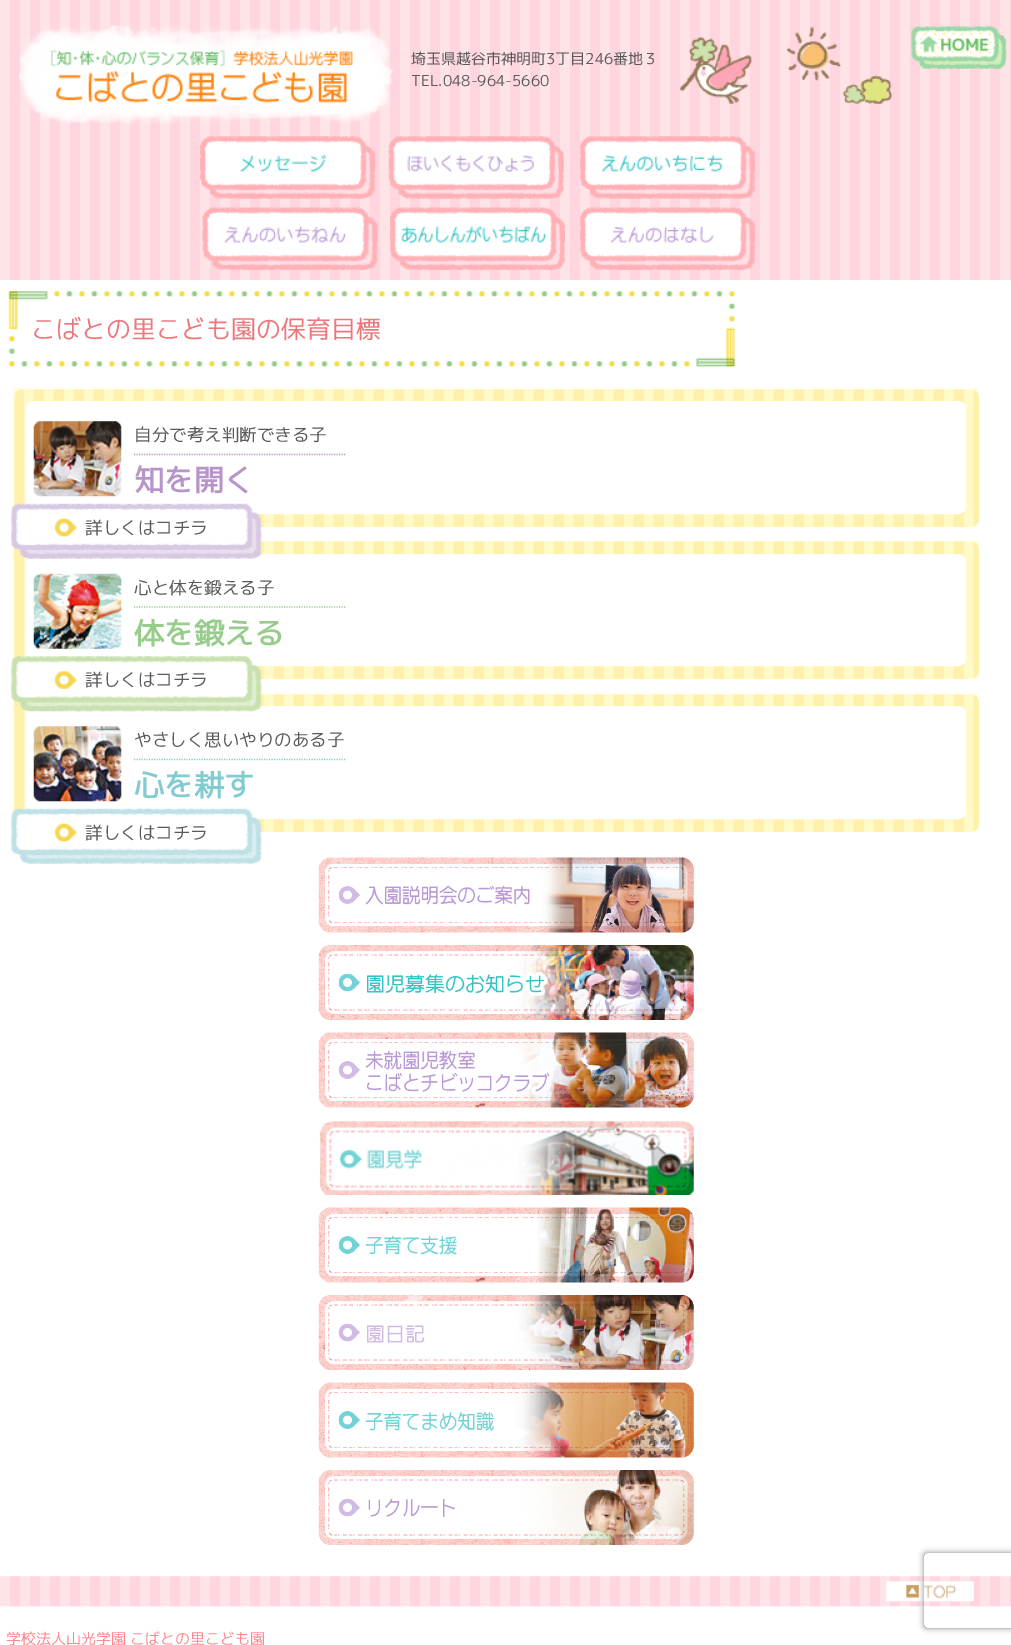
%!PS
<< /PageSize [1011 1645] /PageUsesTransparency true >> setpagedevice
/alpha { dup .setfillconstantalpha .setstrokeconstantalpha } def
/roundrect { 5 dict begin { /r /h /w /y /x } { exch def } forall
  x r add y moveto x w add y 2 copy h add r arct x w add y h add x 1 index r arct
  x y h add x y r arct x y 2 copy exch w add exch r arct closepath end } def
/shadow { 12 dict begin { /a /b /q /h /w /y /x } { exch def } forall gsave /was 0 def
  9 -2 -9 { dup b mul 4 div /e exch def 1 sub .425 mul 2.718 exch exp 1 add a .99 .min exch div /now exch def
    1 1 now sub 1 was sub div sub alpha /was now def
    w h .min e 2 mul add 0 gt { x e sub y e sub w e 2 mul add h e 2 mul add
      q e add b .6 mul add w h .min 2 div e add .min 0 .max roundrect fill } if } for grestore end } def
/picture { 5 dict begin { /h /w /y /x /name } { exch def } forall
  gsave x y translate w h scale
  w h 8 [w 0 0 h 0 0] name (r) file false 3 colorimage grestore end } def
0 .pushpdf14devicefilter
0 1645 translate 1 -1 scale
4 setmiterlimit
1 setgray
0 0 1011 1645 rectfill
(img1.rgb) 0 0 1011 280 picture
(img2.rgb) 19 25 374 99 picture
/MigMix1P-Regular [15 0 0 -15 0 0] selectfont
0.353 setgray
411 64 moveto (埼玉県越谷市神明町3丁目246番地３) show
411 86 moveto (TEL.048-964-5660) show
(img3.rgb) 679 26 214 79 picture
(img4.rgb) 911 26 96 44 picture
(img5.rgb) 200 136 176 63 picture
(img6.rgb) 388 136 176 63 picture
(img7.rgb) 580 136 175 63 picture
(img8.rgb) 202 207 176 63 picture
(img9.rgb) 390 207 175 63 picture
(img10.rgb) 580 207 175 63 picture
(img11.rgb) 8 291 728 76 picture
/MigMix1P-Regular [25 0 0 -25 0 0] selectfont
0.925 0.467 0.486 setrgbcolor
31 338 moveto (こばとの里こども園の保育目標) show
(img12.rgb) 12 387 968 141 picture
1 setgray
13.5 388.5 966 139 7.5 roundrect stroke
26.5 401.5 939 112 7.5 roundrect gsave fill grestore
stroke
(img13.rgb) 33 421 89 76 picture
0.722 0.584 0.784 setrgbcolor
1.2 setlinewidth
[1.25 1.25] 0 setdash
newpath 134 454.5 moveto 346 454.5 lineto stroke
/MigMix1P-Regular [17.5 0 0 -17.5 0 0] selectfont
0.353 setgray
134 441 moveto (自分で考え判断できる子) show
/MigMix1P-Bold [30 0 0 -30 0 0] selectfont
0.722 0.584 0.784 setrgbcolor
134 491 moveto (知を開く) show
(img15.rgb) 12 540 968 140 picture
1 setgray
1 setlinewidth
[] 0 setdash
13.5 540.5 966 139 7.5 roundrect stroke
26.5 554.5 939 111 7.5 roundrect gsave fill grestore
stroke
(img14.rgb) 11 503 251 56 picture
/MigMix1P-Regular [17.5 0 0 -17.5 0 0] selectfont
0.353 setgray
85 534 moveto (詳しくはコチラ) show
(img16.rgb) 33 573 89 76 picture
0.596 0.8 0.549 setrgbcolor
1.2 setlinewidth
[1.25 1.25] 0 setdash
newpath 134 607 moveto 346 607 lineto stroke
0.353 setgray
134 594 moveto (心と体を鍛える子) show
/MigMix1P-Bold [30 0 0 -30 0 0] selectfont
0.596 0.8 0.549 setrgbcolor
134 644 moveto (体を鍛える) show
(img12.rgb) 12 692 968 141 picture
1 setgray
1 setlinewidth
[] 0 setdash
13.5 693.5 966 139 7.5 roundrect stroke
26.5 706.5 939 112 7.5 roundrect gsave fill grestore
stroke
(img17.rgb) 11 656 251 56 picture
/MigMix1P-Regular [17.5 0 0 -17.5 0 0] selectfont
0.353 setgray
85 686 moveto (詳しくはコチラ) show
(img18.rgb) 33 726 89 76 picture
0.51 0.796 0.82 setrgbcolor
1.2 setlinewidth
[1.25 1.25] 0 setdash
newpath 134 759.5 moveto 346 759.5 lineto stroke
0.353 setgray
134 746 moveto (やさしく思いやりのある子) show
/MigMix1P-Bold [30 0 0 -30 0 0] selectfont
0.51 0.796 0.82 setrgbcolor
134 796 moveto (心を耕す) show
(img19.rgb) 11 808 251 56 picture
/MigMix1P-Regular [17.5 0 0 -17.5 0 0] selectfont
0.353 setgray
85 839 moveto (詳しくはコチラ) show
(img20.rgb) 318 857 376 76 picture
(img21.rgb) 318 945 376 75 picture
(img22.rgb) 318 1032 376 76 picture
(img23.rgb) 319 1121 375 74 picture
(img24.rgb) 318 1207 376 76 picture
(img25.rgb) 318 1295 376 75 picture
(img26.rgb) 318 1382 376 76 picture
(img27.rgb) 318 1470 376 75 picture
(img28.rgb) 0 1576 1011 31 picture
(img29.rgb) 886 1581 88 21 picture
gsave
newpath 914 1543 moveto 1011 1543 lineto 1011 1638 lineto 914 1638 lineto closepath 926.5 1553 moveto 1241.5 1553 lineto 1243 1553 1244 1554 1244 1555.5 curveto 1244 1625.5 lineto 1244 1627 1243 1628 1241.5 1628 curveto 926.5 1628 lineto 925 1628 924 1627 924 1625.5 curveto 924 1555.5 lineto 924 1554 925 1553 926.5 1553 curveto closepath eoclip newpath
0.502 setgray
924 1553 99 75 2.5 3 1 shadow
grestore
/MigMix1P-Regular [15 0 0 -15 0 0] selectfont
1 0.529 0.561 setrgbcolor
6 1644 moveto (学校法人山光学園 こばとの里こども園) show
.poppdf14devicefilter showpage
